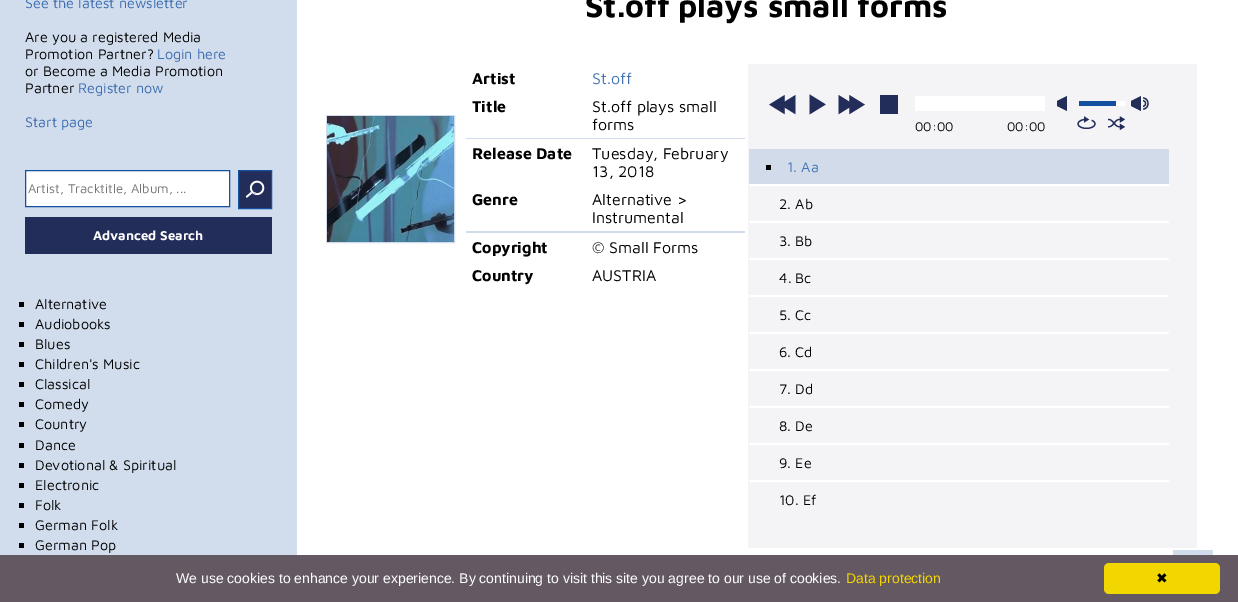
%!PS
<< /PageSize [1238 602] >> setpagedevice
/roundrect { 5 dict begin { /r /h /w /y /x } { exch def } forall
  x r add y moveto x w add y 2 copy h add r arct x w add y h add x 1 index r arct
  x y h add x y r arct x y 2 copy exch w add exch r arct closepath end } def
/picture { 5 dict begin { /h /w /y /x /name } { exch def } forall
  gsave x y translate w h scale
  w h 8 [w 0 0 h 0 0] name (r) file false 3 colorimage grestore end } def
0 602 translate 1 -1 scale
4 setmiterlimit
1 setgray
0 0 1238 602 rectfill
0.816 0.863 0.925 setrgbcolor
1173 550 40 5 rectfill
0.82 0.867 0.929 setrgbcolor
0 0 297 555 rectfill
/MavenPro-Regular [14.4 0 0 -14.4 0 0] selectfont
0.227 0.424 0.686 setrgbcolor
25 8 moveto (See the latest newsletter) show
0 setgray
25 42 moveto (Are you a registered Media) show
25 59 moveto (Promotion Partner?) show
0.227 0.424 0.686 setrgbcolor
157 59 moveto (Login here) show
0 setgray
25 76 moveto (or Become a Media Promotion) show
25 93 moveto (Partner) show
0.227 0.424 0.686 setrgbcolor
78 93 moveto (Register now) show
25 127 moveto (Start page) show
1 setgray
newpath 25.5 170.5 moveto 229.5 170.5 lineto 229.5 206.5 lineto 25.5 206.5 lineto closepath gsave fill grestore
0.078 0.314 0.627 setrgbcolor
stroke
/MavenPro-Regular [13 0 0 -13 0 0] selectfont
0.459 setgray
28 193 moveto (Artist, Tracktitle, Album, ...) show
0.137 0.176 0.353 setrgbcolor
239 171 32 37 rectfill
(img1.rgb) 245 180 20 18 picture
0.078 0.314 0.627 setrgbcolor
238.5 170.5 33 38 rectstroke
/MavenPro-Bold [13.25 0 0 -13.25 0 0] selectfont
0.745 0.757 0.808 setrgbcolor
253 194 moveto (.) show
0.137 0.176 0.353 setrgbcolor
25 217 247 37 rectfill
1 setgray
93 240 moveto (Advanced Search) show
0 setgray
19 302 5 5 rectfill
/MavenPro-Regular [14.4 0 0 -14.4 0 0] selectfont
35 309 moveto (Alternative) show
19 322 5 5 rectfill
35 329 moveto (Audiobooks) show
19 342 5 5 rectfill
35 349 moveto (Blues) show
19 362 5 5 rectfill
35 369 moveto (Children's Music) show
19 382 5 5 rectfill
35 389 moveto (Classical) show
19 402 5 5 rectfill
35 409 moveto (Comedy) show
19 422 5 5 rectfill
35 429 moveto (Country) show
19 443 5 5 rectfill
35 450 moveto (Dance) show
19 463 5 5 rectfill
35 470 moveto (Devotional & Spiritual) show
19 483 5 5 rectfill
35 490 moveto (Electronic) show
19 503 5 5 rectfill
35 510 moveto (Folk) show
19 523 5 5 rectfill
35 530 moveto (German Folk) show
19 543 5 5 rectfill
35 550 moveto (German Pop) show
/MavenPro-Bold [32 0 0 -32 0 0] selectfont
585 17 moveto (St.off plays small forms) show
0.816 0.863 0.925 setrgbcolor
326.5 115.5 128 127 rectstroke
(img2.rgb) 327 116 127 126 picture
/MavenPro-Bold [16 0 0 -16 0 0] selectfont
0 setgray
472 84 moveto (Artist) show
/MavenPro-Regular [16 0 0 -16 0 0] selectfont
0.263 0.451 0.702 setrgbcolor
592 84 moveto (St.off) show
/MavenPro-Bold [16 0 0 -16 0 0] selectfont
0 setgray
472 112 moveto (Title) show
/MavenPro-Regular [16 0 0 -16 0 0] selectfont
592 112 moveto (St.off plays small) show
592 130 moveto (forms) show
0.816 0.863 0.925 setrgbcolor
466 138 279 1 rectfill
/MavenPro-Bold [16 0 0 -16 0 0] selectfont
0 setgray
472 159 moveto (Release Date) show
/MavenPro-Regular [16 0 0 -16 0 0] selectfont
592 159 moveto (Tuesday, February) show
592 177 moveto (13, 2018) show
/MavenPro-Bold [16 0 0 -16 0 0] selectfont
472 205 moveto (Genre) show
/MavenPro-Regular [16 0 0 -16 0 0] selectfont
592 205 moveto (Alternative >) show
592 223 moveto (Instrumental) show
0.816 0.863 0.925 setrgbcolor
466 231 279 2 rectfill
/MavenPro-Bold [16 0 0 -16 0 0] selectfont
0 setgray
472 253 moveto (Copyright) show
/MavenPro-Regular [16 0 0 -16 0 0] selectfont
592 253 moveto (© Small Forms) show
/MavenPro-Bold [16 0 0 -16 0 0] selectfont
472 281 moveto (Country) show
/MavenPro-Regular [16 0 0 -16 0 0] selectfont
592 281 moveto (AUSTRIA) show
0.957 0.957 0.969 setrgbcolor
748 64 449 484 rectfill
(img3.rgb) 769 95 27 20 picture
(img4.rgb) 809 94 17 21 picture
(img5.rgb) 838 95 27 20 picture
0.137 0.176 0.353 setrgbcolor
880 95 18 19 rectfill
(img6.rgb) 1057 96 10 15 picture
(img7.rgb) 1131 96 18 15 picture
1 setgray
915 96 130 15 rectfill
1116 101 9 5 rectfill
0.078 0.314 0.627 setrgbcolor
1079 101 37 5 rectfill
/MavenPro-Regular [13 0 0 -13 0 0] selectfont
0 setgray
915 131 moveto (00:00) show
1007 131 moveto (00:00) show
(img8.rgb) 1077 116 19 13 picture
(img9.rgb) 1108 116 17 14 picture
0.824 0.859 0.918 setrgbcolor
749 149 420 35 rectfill
1 setgray
749 184 420 2 rectfill
0 setgray
766 165 5 5 rectfill
/MavenPro-Regular [14.4 0 0 -14.4 0 0] selectfont
0.263 0.451 0.702 setrgbcolor
787 172 moveto (1. Aa) show
1 setgray
749 221 420 2 rectfill
0 setgray
779 209 moveto (2. Ab) show
1 setgray
749 258 420 2 rectfill
0 setgray
779 246 moveto (3. Bb) show
1 setgray
749 295 420 2 rectfill
0 setgray
779 283 moveto (4. Bc) show
1 setgray
749 332 420 2 rectfill
0 setgray
779 320 moveto (5. Cc) show
1 setgray
749 369 420 2 rectfill
0 setgray
779 357 moveto (6. Cd) show
1 setgray
749 406 420 2 rectfill
0 setgray
779 394 moveto (7. Dd) show
1 setgray
749 443 420 2 rectfill
0 setgray
779 431 moveto (8. De) show
1 setgray
749 480 420 2 rectfill
0 setgray
779 468 moveto (9. Ee) show
779 505 moveto (10. Ef) show
0.392 0.345 0.384 setrgbcolor
0 555 1238 47 rectfill
/LiberationSans-Regular [14 0 0 -14 0 0] selectfont
1 setgray
176 583 moveto (We use cookies to enhance your experience. By continuing to visit this site you agree to our use of cookies.) show
0.945 0.839 0 setrgbcolor
846 583 moveto (Data protection) show
1104 563 116 31 5 roundrect fill
/DejaVuSans-Regular [14 0 0 -14 0 0] selectfont
0 setgray
1156 583 moveto (✖) show
showpage
